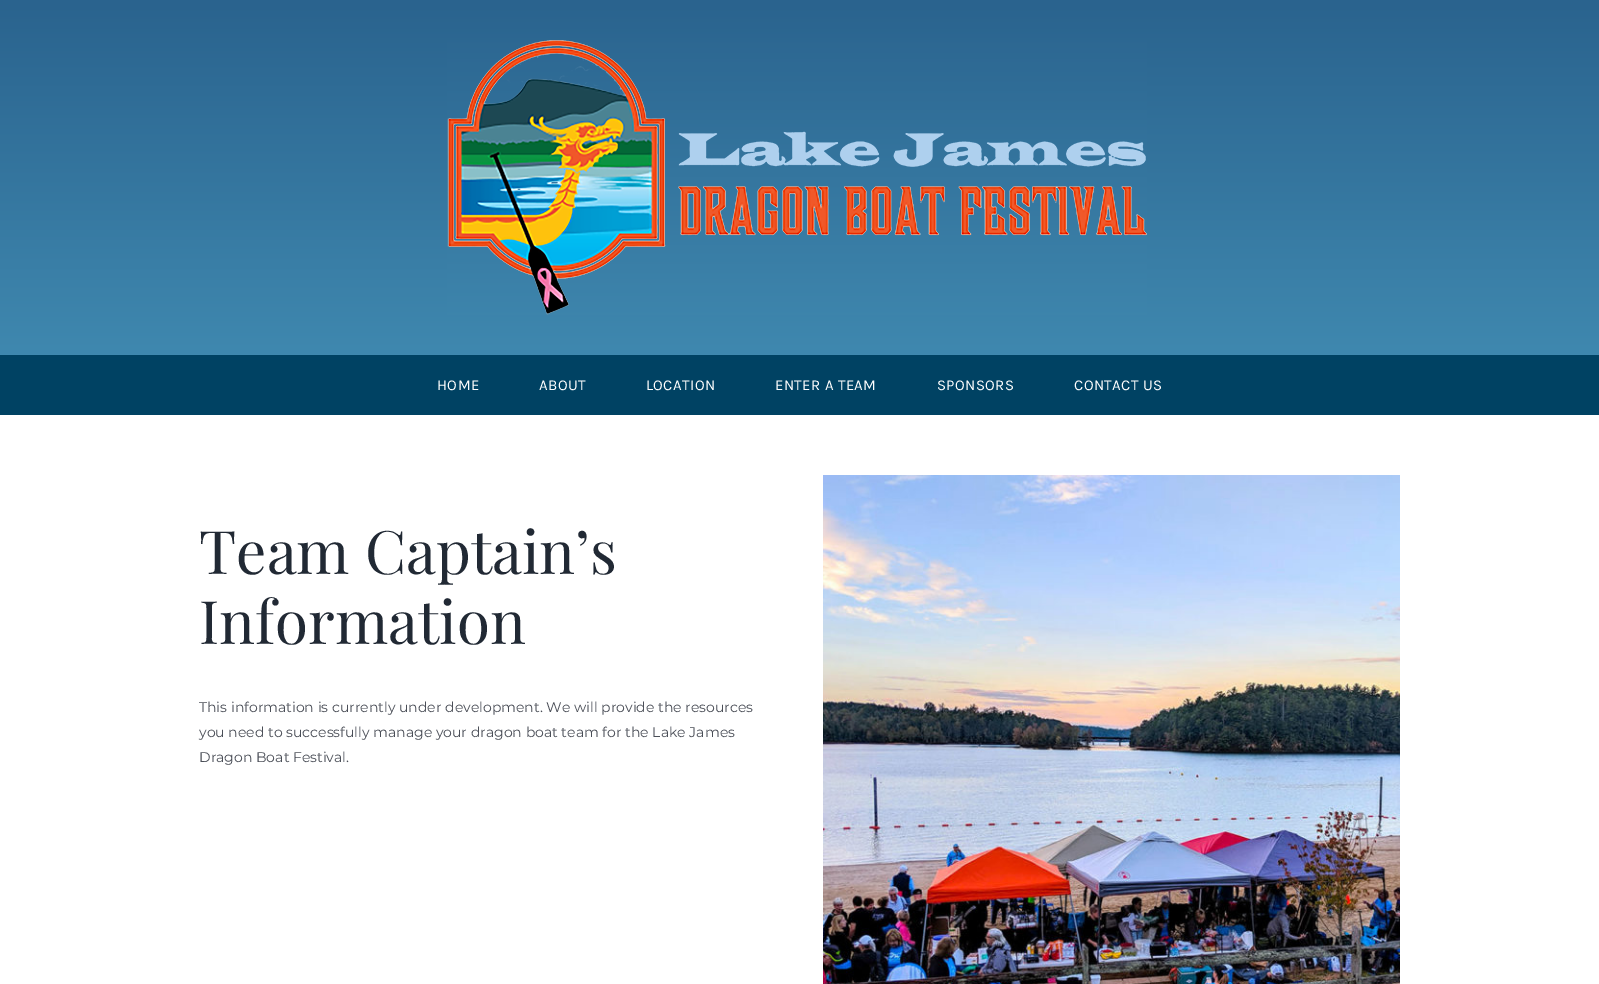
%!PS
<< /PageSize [1599 984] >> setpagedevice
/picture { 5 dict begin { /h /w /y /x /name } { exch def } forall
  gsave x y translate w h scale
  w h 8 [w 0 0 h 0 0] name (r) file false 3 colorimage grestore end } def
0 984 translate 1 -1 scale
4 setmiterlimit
1 setgray
0 0 1599 984 rectfill
gsave newpath 0 0 moveto 1599 0 lineto 1599 355 lineto 0 355 lineto closepath clip newpath
<< /ShadingType 2 /ColorSpace /DeviceRGB /Coords [800 0 800 355] /Extend [true true] /Function << /FunctionType 2 /Domain [0 1] /C0 [0.165 0.388 0.557] /C1 [0.247 0.533 0.686] /N 1 >> >> shfill grestore
(img1.rgb) 447 40 700 275 picture
0 0.259 0.388 setrgbcolor
0 355 1599 60 rectfill
/Karla-Regular [15 0 0 -15 0 0] selectfont
1 setgray
437 390 moveto 0.4 0 (HOME) ashow
539 390 moveto 0.4 0 (ABOUT) ashow
646 390 moveto 0.4 0 (LOCATION) ashow
775 390 moveto 0.4 0 (ENTER A TEAM) ashow
937 390 moveto 0.4 0 (SPONSORS) ashow
1074 390 moveto 0.4 0 (CONTACT US) ashow
/PlayfairDisplay-Regular [60 0 0 -60 0 0] selectfont
0.129 0.161 0.204 setrgbcolor
199 574 moveto (Team Captain’s) show
199 644 moveto (Information) show
/Montserrat-Regular [14 0 0 -14 0 0] selectfont
0.29 0.306 0.341 setrgbcolor
199 712 moveto (This information is currently under development. We will provide the resources) show
199 737 moveto (you need to successfully manage your dragon boat team for the Lake James) show
199 762 moveto (Dragon Boat Festival.) show
(img2.rgb) 823 475 577 509 picture
showpage
